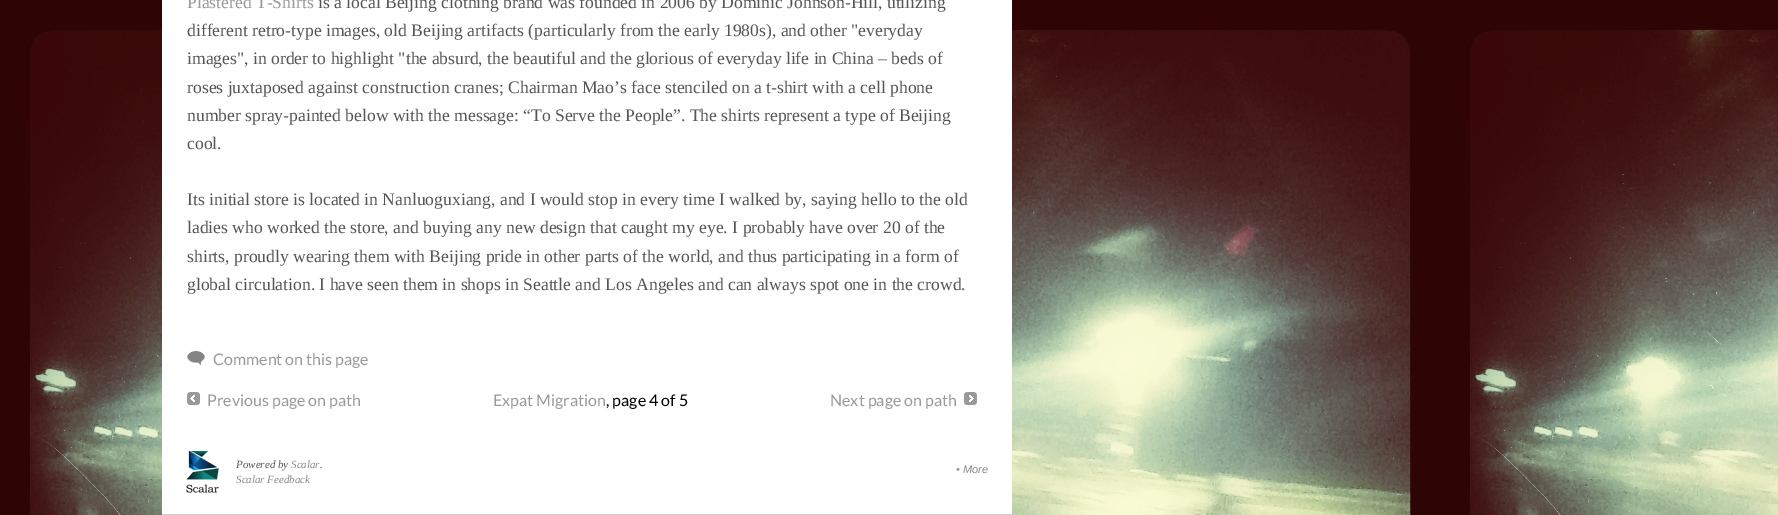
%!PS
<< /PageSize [1778 515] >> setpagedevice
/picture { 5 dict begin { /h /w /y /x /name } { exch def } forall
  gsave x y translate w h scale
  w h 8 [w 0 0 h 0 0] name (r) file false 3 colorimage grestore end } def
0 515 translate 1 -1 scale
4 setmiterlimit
1 setgray
0 0 1778 515 rectfill
(img1.rgb) 0 0 1778 515 picture
162 0 850 514 rectfill
/LiberationSerif-Regular [17.6 0 0 -17.6 0 0] selectfont
0.6 setgray
187 8 moveto (Plastered T-Shirts) show
0.333 setgray
318 8 moveto (is a local Beijing clothing brand was founded in 2006 by Dominic Johnson-Hill, utilizing) show
187 36 moveto (different retro-type images, old Beijing artifacts \(particularly from the early 1980s\), and other "everyday) show
187 64 moveto (images", in order to highlight "the absurd, the beautiful and the glorious of everyday life in China – beds of) show
187 93 moveto (roses juxtaposed against construction cranes; Chairman Mao’s face stenciled on a t-shirt with a cell phone) show
187 121 moveto (number spray-painted below with the message: “To Serve the People”. The shirts represent a type of Beijing) show
187 149 moveto (cool.) show
187 205 moveto (Its initial store is located in Nanluoguxiang, and I would stop in every time I walked by, saying hello to the old) show
187 233 moveto (ladies who worked the store, and buying any new design that caught my eye. I probably have over 20 of the) show
187 262 moveto (shirts, proudly wearing them with Beijing pride in other parts of the world, and thus participating in a form of) show
187 290 moveto (global circulation. I have seen them in shops in Seattle and Los Angeles and can always spot one in the crowd.) show
(img2.rgb) 187 351 18 15 picture
/Lato-Regular [16 0 0 -16 0 0] selectfont
0.6 setgray
213 365 moveto (Comment on this page) show
(img3.rgb) 187 392 14 13 picture
207 406 moveto (Previous page on path) show
493 406 moveto (Expat Migration) show
0 setgray
606 406 moveto (, page 4 of 5) show
0.6 setgray
830 406 moveto (Next page on path) show
(img4.rgb) 963 392 14 13 picture
(img5.rgb) 186 451 33 42 picture
/LiberationSerif-Italic [11 0 0 -11 0 0] selectfont
0.333 setgray
236 468 moveto (Powered by) show
0.533 setgray
291 468 moveto (Scalar) show
0.333 setgray
320 468 moveto (.) show
0.533 setgray
236 483 moveto (Scalar Feedback) show
/LiberationSans-Italic [11 0 0 -11 0 0] selectfont
0.6 setgray
956 473 moveto (•) show
0.533 setgray
963 473 moveto (More) show
0.8 setgray
162 514 852 1 rectfill
showpage
